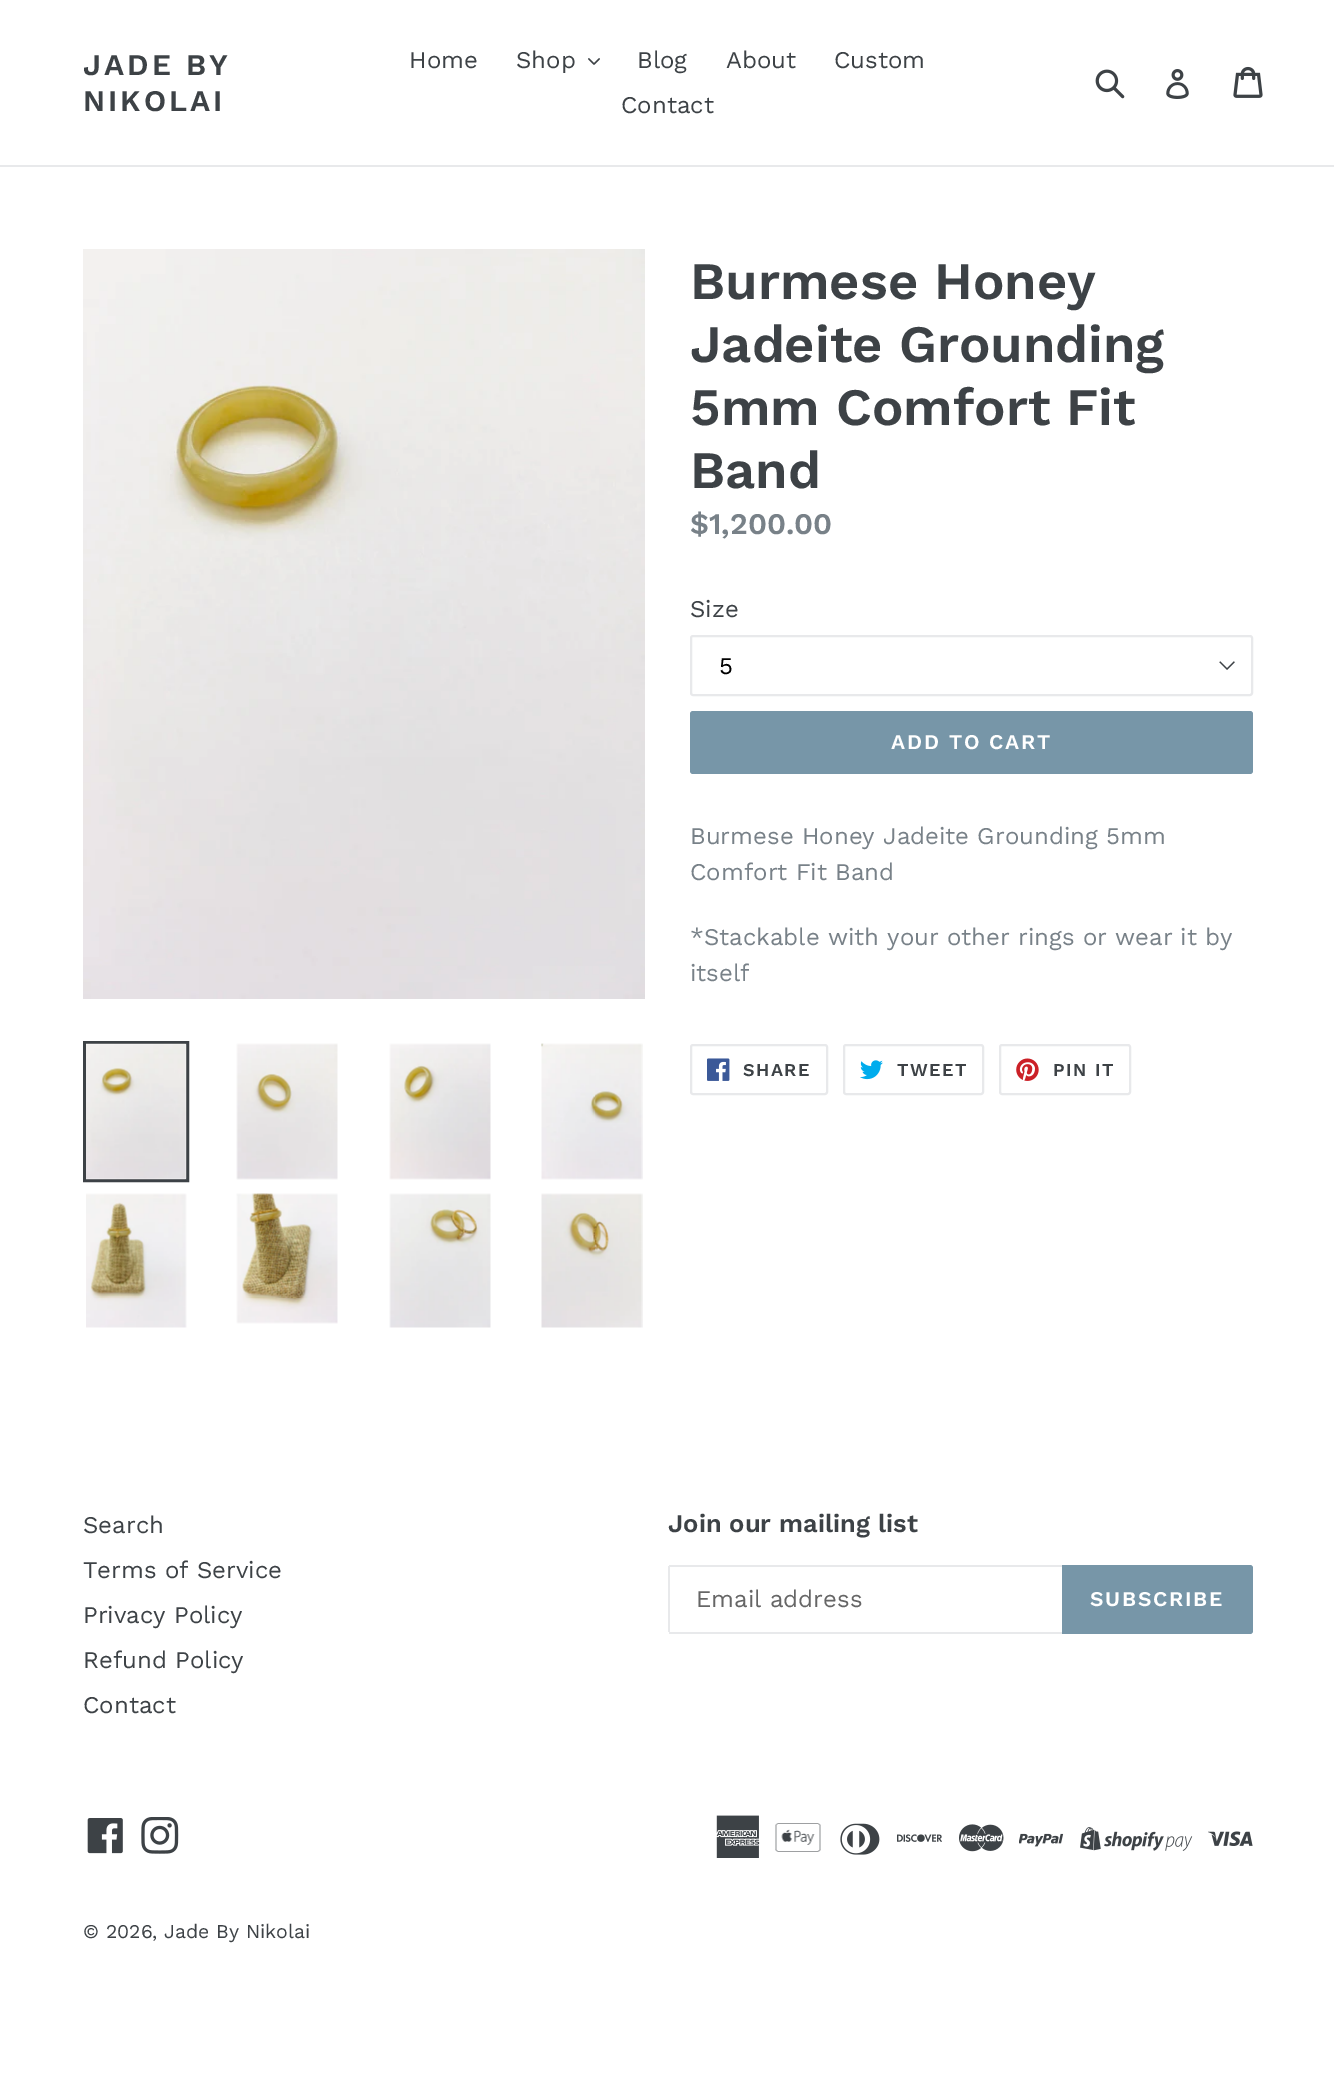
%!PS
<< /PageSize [1334 2075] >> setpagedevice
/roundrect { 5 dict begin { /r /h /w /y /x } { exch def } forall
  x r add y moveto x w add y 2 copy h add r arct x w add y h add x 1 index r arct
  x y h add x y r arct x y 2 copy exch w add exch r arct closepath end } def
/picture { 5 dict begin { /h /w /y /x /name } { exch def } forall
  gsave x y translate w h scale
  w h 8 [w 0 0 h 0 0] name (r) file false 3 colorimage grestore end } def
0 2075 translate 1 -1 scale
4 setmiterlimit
1 setgray
0 0 1334 2075 rectfill
0.91 0.914 0.922 setrgbcolor
0 165 1334 2 rectfill
/WorkSans-SemiBold [30 0 0 -30 0 0] selectfont
0.239 0.259 0.275 setrgbcolor
83 75 moveto 3 0 (JADE BY) ashow
83 111 moveto 3 0 (NIKOLAI) ashow
/WorkSans-Regular [24 0 0 -24 0 0] selectfont
409 68 moveto (Home) show
516 68 moveto (Shop) show
(img1.rgb) 588 58 12 7 picture
637 68 moveto (Blog) show
726 68 moveto (About) show
834 68 moveto (Custom) show
621 113 moveto (Contact) show
(img2.rgb) 1095 69 30 30 picture
(img3.rgb) 1166 69 23 30 picture
(img4.rgb) 1233 66 30 32 picture
(img5.rgb) 83 249 562 750 picture
3 setlinewidth
84.5 1042.5 103 138 rectstroke
(img6.rgb) 86 1043 101 137 picture
(img7.rgb) 236 1043 102 137 picture
(img8.rgb) 389 1043 102 137 picture
(img9.rgb) 541 1043 102 137 picture
(img10.rgb) 86 1193 101 135 picture
(img11.rgb) 236 1193 102 131 picture
(img12.rgb) 389 1193 102 135 picture
(img13.rgb) 541 1193 102 135 picture
/WorkSans-SemiBold [52.5 0 0 -52.5 0 0] selectfont
690 299 moveto (Burmese Honey) show
690 362 moveto (Jadeite Grounding) show
690 425 moveto (5mm Comfort Fit) show
690 488 moveto (Band) show
/WorkSans-SemiBold [30 0 0 -30 0 0] selectfont
0.471 0.506 0.533 setrgbcolor
690 534 moveto ($1,200.00) show
/WorkSans-Regular [24 0 0 -24 0 0] selectfont
0.239 0.259 0.275 setrgbcolor
690 617 moveto (Size) show
(img14.rgb) 1219 661 16 9 picture
0.91 0.914 0.922 setrgbcolor
2 setlinewidth
691 636 561 59 2 roundrect stroke
0 setgray
719 674 moveto (5) show
0.467 0.588 0.659 setrgbcolor
690 711 563 63 3 roundrect fill
/WorkSans-SemiBold [21 0 0 -21 0 0] selectfont
1 setgray
891 749 moveto 1.75 0 (ADD TO CART) ashow
/WorkSans-Regular [24 0 0 -24 0 0] selectfont
0.471 0.506 0.533 setrgbcolor
690 844 moveto (Burmese Honey Jadeite Grounding 5mm) show
690 880 moveto (Comfort Fit Band) show
690 945 moveto (*Stackable with your other rings or wear it by) show
690 981 moveto (itself) show
0.91 0.914 0.922 setrgbcolor
691 1045 136 49 2 roundrect stroke
(img15.rgb) 707 1058 23 23 picture
/WorkSans-SemiBold [18 0 0 -18 0 0] selectfont
0.239 0.259 0.275 setrgbcolor
743 1076 moveto 1.5 0 (SHARE) ashow
0.91 0.914 0.922 setrgbcolor
844 1045 139 49 2 roundrect stroke
(img16.rgb) 860 1060 23 20 picture
0.239 0.259 0.275 setrgbcolor
897 1076 moveto 1.5 0 (TWEET) ashow
0.91 0.914 0.922 setrgbcolor
1000 1045 130 49 2 roundrect stroke
(img17.rgb) 1016 1058 23 23 picture
0.239 0.259 0.275 setrgbcolor
1053 1076 moveto 1.5 0 (PIN IT) ashow
/WorkSans-Regular [24 0 0 -24 0 0] selectfont
83 1533 moveto (Search) show
83 1578 moveto (Terms of Service) show
83 1623 moveto (Privacy Policy) show
83 1668 moveto (Refund Policy) show
83 1713 moveto (Contact) show
/WorkSans-SemiBold [25.5 0 0 -25.5 0 0] selectfont
668 1532 moveto (Join our mailing list) show
0.91 0.914 0.922 setrgbcolor
669 1565 393 2 rectfill
669 1632 393 2 rectfill
668 1566 2 66 rectfill
/WorkSans-Regular [24 0 0 -24 0 0] selectfont
0.4 setgray
696 1607 moveto (Email address) show
0.467 0.588 0.659 setrgbcolor
newpath 1062 1565 moveto 1250 1565 lineto 1251.5 1565 1253 1566.5 1253 1568 curveto 1253 1631 lineto 1253 1632.5 1251.5 1634 1250 1634 curveto 1062 1634 lineto closepath fill
/WorkSans-SemiBold [21 0 0 -21 0 0] selectfont
1 setgray
1090 1606 moveto 1.75 0 (SUBSCRIBE) ashow
(img18.rgb) 87 1818 36 36 picture
(img19.rgb) 141 1817 38 37 picture
(img20.rgb) 716 1815 44 43 picture
(img21.rgb) 775 1823 46 29 picture
(img22.rgb) 840 1823 40 32 picture
(img23.rgb) 897 1834 45 8 picture
(img24.rgb) 959 1824 45 28 picture
(img25.rgb) 1019 1833 45 14 picture
(img26.rgb) 1080 1827 113 24 picture
(img27.rgb) 1208 1831 45 15 picture
/WorkSans-Regular [19.5 0 0 -19.5 0 0] selectfont
0.239 0.259 0.275 setrgbcolor
83 1938 moveto (© 2026, Jade By Nikolai) show
showpage
